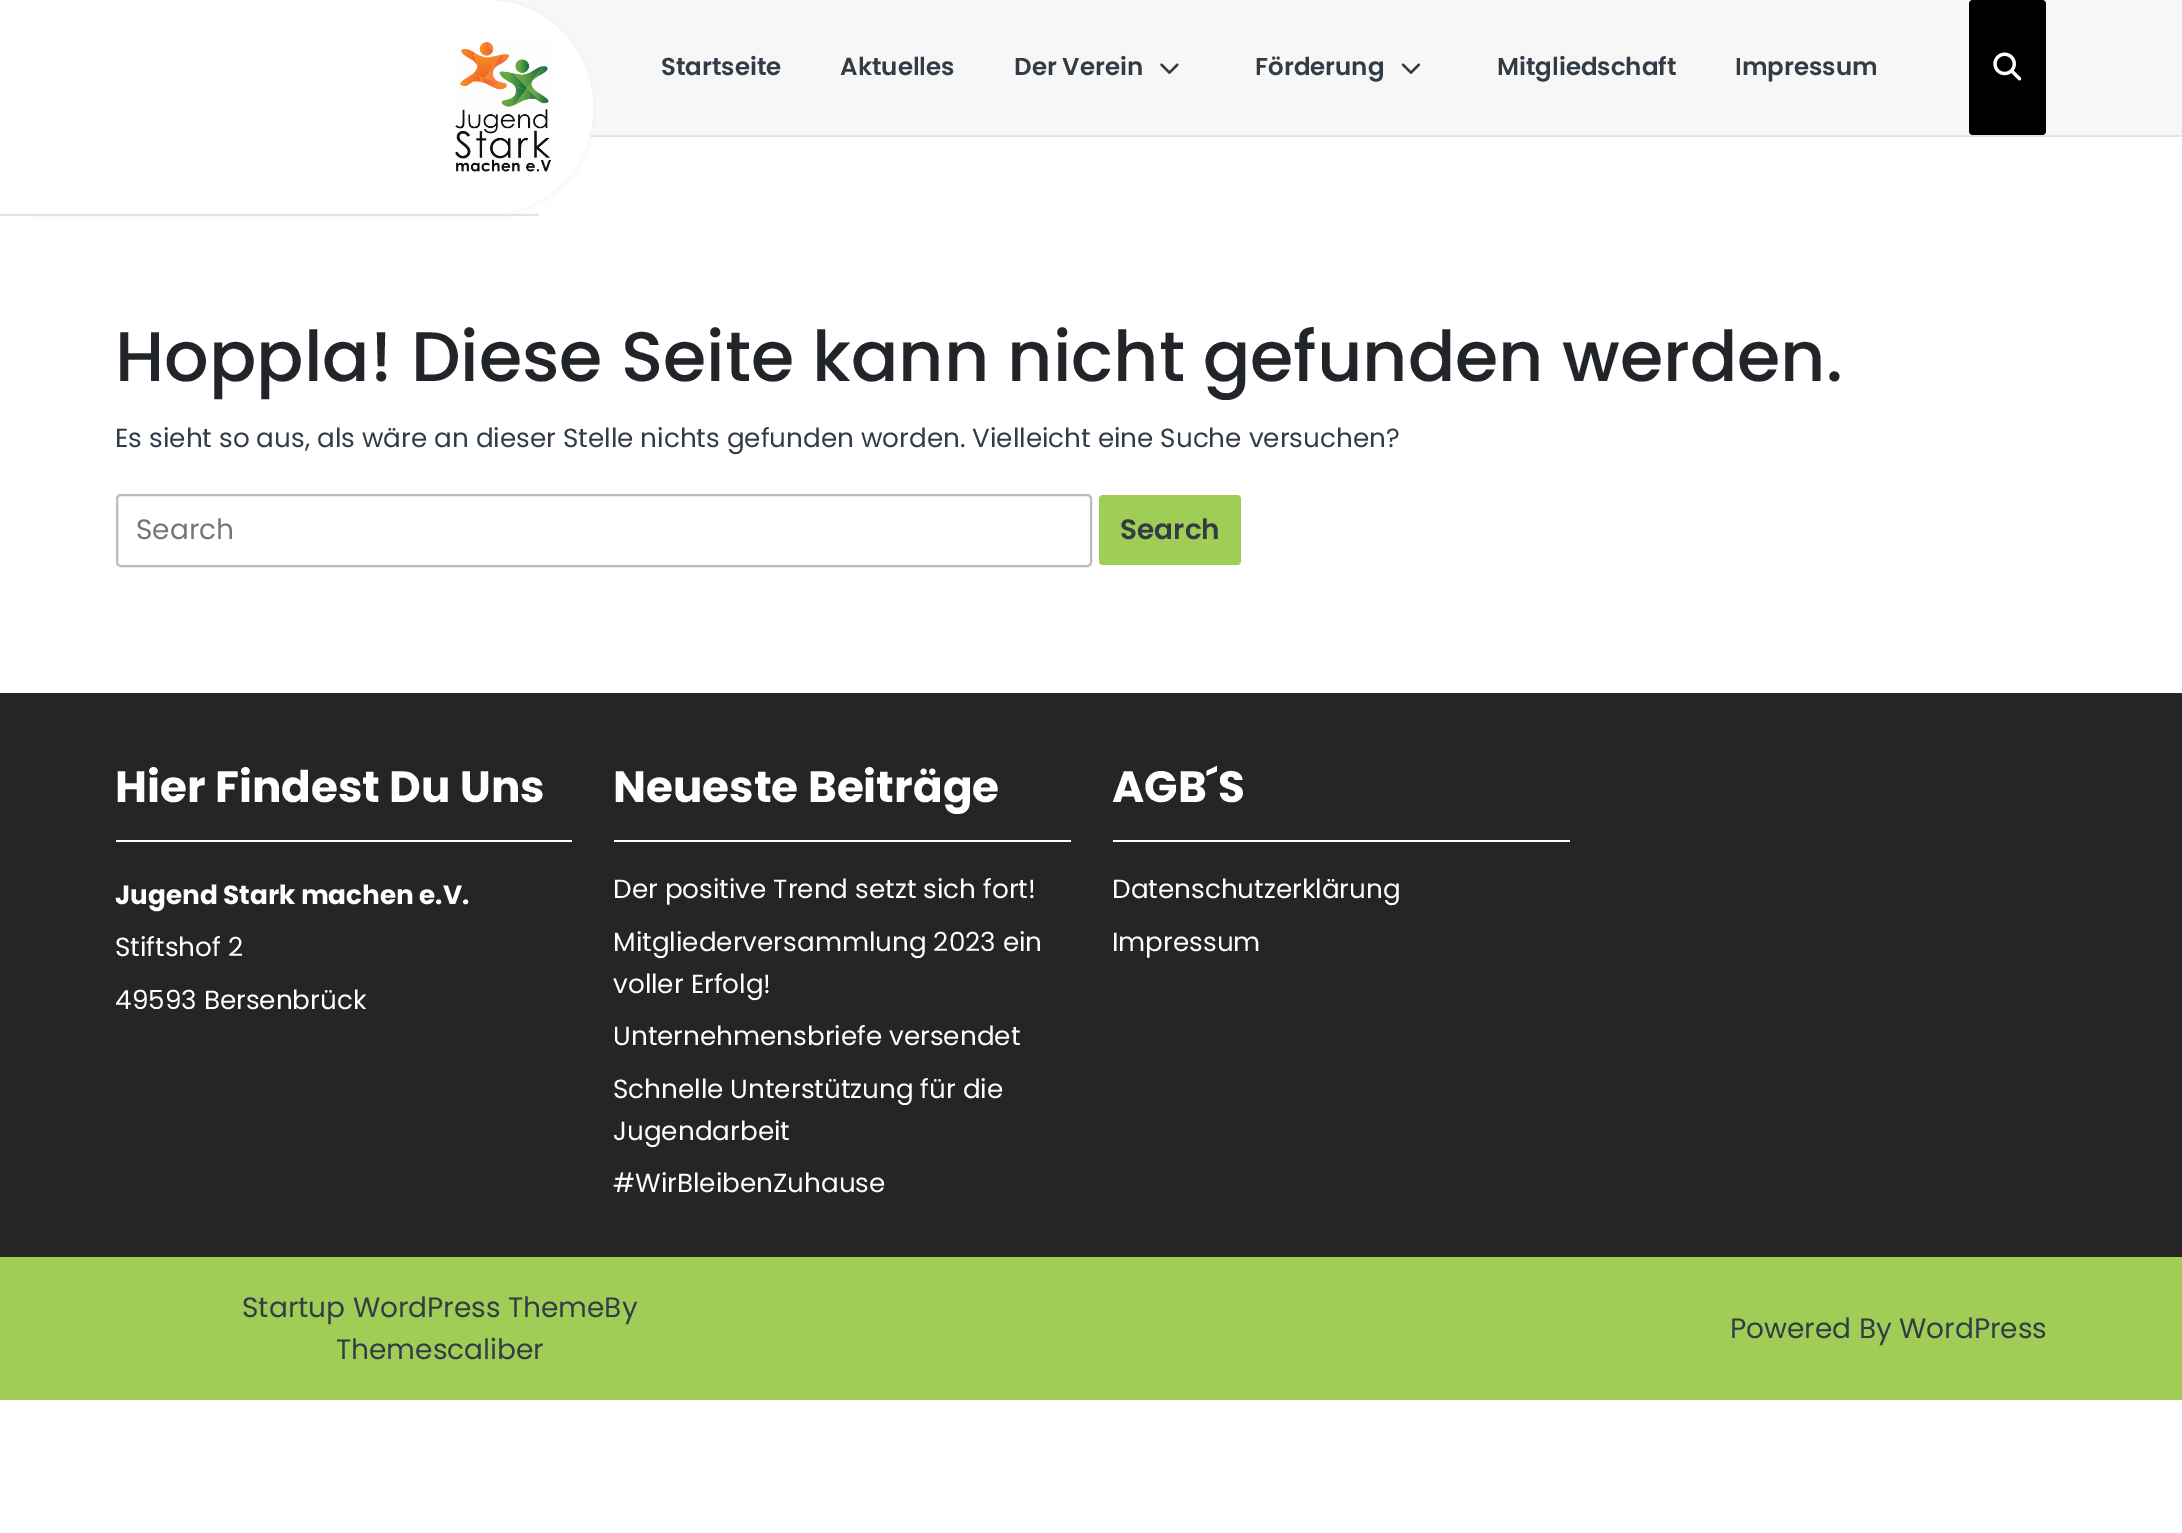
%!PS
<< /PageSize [2182 1533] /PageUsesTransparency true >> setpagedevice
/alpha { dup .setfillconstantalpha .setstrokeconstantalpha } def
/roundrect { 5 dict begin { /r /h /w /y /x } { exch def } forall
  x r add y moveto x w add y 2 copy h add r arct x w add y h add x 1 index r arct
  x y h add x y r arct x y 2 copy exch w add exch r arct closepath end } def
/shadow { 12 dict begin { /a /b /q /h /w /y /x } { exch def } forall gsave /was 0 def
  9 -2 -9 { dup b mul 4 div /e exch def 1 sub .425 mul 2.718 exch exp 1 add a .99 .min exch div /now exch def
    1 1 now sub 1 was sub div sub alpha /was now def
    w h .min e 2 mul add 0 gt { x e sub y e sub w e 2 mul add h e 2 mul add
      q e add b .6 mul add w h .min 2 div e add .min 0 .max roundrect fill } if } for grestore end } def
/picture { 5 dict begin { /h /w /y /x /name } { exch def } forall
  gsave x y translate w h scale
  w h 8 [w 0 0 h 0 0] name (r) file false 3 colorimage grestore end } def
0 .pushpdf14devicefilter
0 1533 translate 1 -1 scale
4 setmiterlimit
1 setgray
0 0 2182 1533 rectfill
0.969 setgray
486 0 1696 135 rectfill
0.89 0.894 0.894 setrgbcolor
588 135 1594 2 rectfill
0.933 setgray
-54 0 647 215 107.5 3.5 1 shadow
1 setgray
newpath -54 0 moveto 485.5 0 lineto 545 0 593 48 593 107.5 curveto 593 167 545 215 485.5 215 curveto -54 215 lineto closepath fill
0.89 0.894 0.894 setrgbcolor
0 214 539 2 rectfill
(img1.rgb) 455 42 97 130 picture
/Poppins-SemiBold [24.5 0 0 -24.5 0 0] selectfont
0.196 0.235 0.278 setrgbcolor
661 75 moveto (Startseite) show
840 75 moveto (Aktuelles) show
1014 75 moveto (Der Verein) show
(img2.rgb) 1160 63 19 11 picture
1255 75 moveto (Förderung) show
(img3.rgb) 1401 63 20 11 picture
1497 75 moveto (Mitgliedschaft) show
1735 75 moveto (Impressum) show
0 setgray
1969 0 77 135 4 roundrect fill
(img4.rgb) 1993 52 29 29 picture
/Poppins-Medium [70 0 0 -70 0 0] selectfont
0.129 0.145 0.161 setrgbcolor
115 381 moveto (Hoppla! Diese Seite kann nicht gefunden werden.) show
/Poppins-Regular [26.25 0 0 -26.25 0 0] selectfont
0.196 0.235 0.278 setrgbcolor
115 447 moveto (Es sieht so aus, als wäre an dieser Stelle nichts gefunden worden. Vielleicht eine Suche versuchen?) show
0.733 setgray
2 setlinewidth
117 495 974 71 4 roundrect stroke
/Poppins-Regular [28 0 0 -28 0 0] selectfont
0.459 setgray
136 539 moveto (Search) show
0.624 0.804 0.333 setrgbcolor
1099 495 142 70 4 roundrect fill
/Poppins-SemiBold [28 0 0 -28 0 0] selectfont
0.196 0.235 0.278 setrgbcolor
1120 539 moveto (Search) show
0.149 0.145 0.145 setrgbcolor
0 693 2182 564 rectfill
1 setgray
116 840 456 2 rectfill
/Poppins-Bold [43.75 0 0 -43.75 0 0] selectfont
115 802 moveto (Hier Findest Du Uns) show
/Poppins-Bold [26.25 0 0 -26.25 0 0] selectfont
115 904 moveto (Jugend Stark machen e.V.) show
/Poppins-Regular [26.25 0 0 -26.25 0 0] selectfont
115 956 moveto (Stiftshof 2) show
115 1009 moveto (49593 Bersenbrück) show
614 840 457 2 rectfill
/Poppins-Bold [43.75 0 0 -43.75 0 0] selectfont
613 802 moveto (Neueste Beiträge) show
/Poppins-Regular [26.25 0 0 -26.25 0 0] selectfont
613 898 moveto (Der positive Trend setzt sich fort!) show
613 951 moveto (Mitgliederversammlung 2023 ein) show
613 993 moveto (voller Erfolg!) show
613 1045 moveto (Unternehmensbriefe versendet) show
613 1098 moveto (Schnelle Unterstützung für die) show
613 1140 moveto (Jugendarbeit) show
613 1192 moveto (#WirBleibenZuhause) show
1113 840 457 2 rectfill
/Poppins-Bold [43.75 0 0 -43.75 0 0] selectfont
1112 802 moveto (AGB´S) show
/Poppins-Regular [26.25 0 0 -26.25 0 0] selectfont
1112 898 moveto (Datenschutzerklärung) show
1112 951 moveto (Impressum) show
0.624 0.804 0.333 setrgbcolor
0 1257 2182 143 rectfill
/Poppins-Regular [28 0 0 -28 0 0] selectfont
0.196 0.235 0.278 setrgbcolor
242 1317 moveto (Startup WordPress ThemeBy) show
336 1359 moveto (Themescaliber) show
1730 1338 moveto (Powered By WordPress) show
.poppdf14devicefilter showpage
